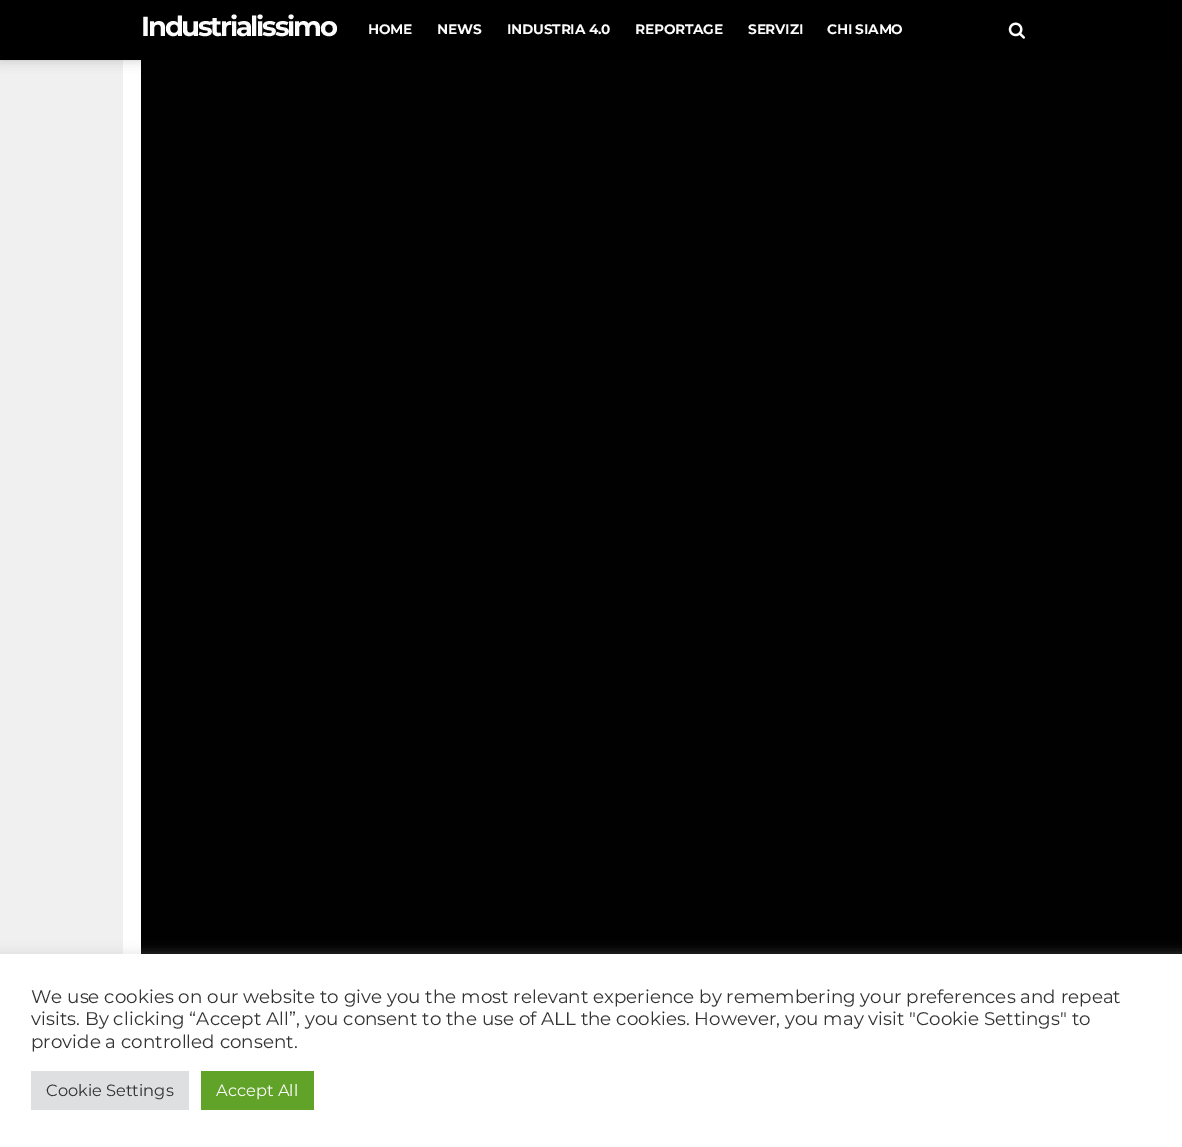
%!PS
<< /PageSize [1182 1147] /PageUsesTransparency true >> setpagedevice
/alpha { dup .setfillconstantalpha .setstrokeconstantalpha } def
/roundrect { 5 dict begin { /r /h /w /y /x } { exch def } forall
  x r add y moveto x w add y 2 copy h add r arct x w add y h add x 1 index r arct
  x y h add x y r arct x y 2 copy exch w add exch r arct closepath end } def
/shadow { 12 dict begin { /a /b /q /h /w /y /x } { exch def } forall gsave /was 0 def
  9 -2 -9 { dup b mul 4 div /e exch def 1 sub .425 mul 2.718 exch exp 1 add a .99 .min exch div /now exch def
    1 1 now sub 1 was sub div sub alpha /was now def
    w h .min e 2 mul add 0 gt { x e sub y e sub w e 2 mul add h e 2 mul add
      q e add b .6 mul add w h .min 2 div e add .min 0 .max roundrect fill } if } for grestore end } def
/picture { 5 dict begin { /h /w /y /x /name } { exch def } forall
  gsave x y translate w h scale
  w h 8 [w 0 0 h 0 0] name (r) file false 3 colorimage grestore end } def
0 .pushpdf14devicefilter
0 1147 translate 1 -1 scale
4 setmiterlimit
0.941 setgray
0 0 1182 1147 rectfill
1 setgray
123 60 18 894 rectfill
0.004 setgray
141 60 1041 894 rectfill
0 setgray
0 -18 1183 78 0 6 0.2 shadow
0 0 1182 60 rectfill
/Montserrat-Bold [27.5 0 0 -27.5 0 0] selectfont
0.988 setgray
141 36 moveto -2.25 0 (Industrialissimo) ashow
/Montserrat-Bold [13.75 0 0 -13.75 0 0] selectfont
368 34 moveto -0.25 0 (HOME) ashow
437 34 moveto -0.25 0 (NEWS) ashow
507 34 moveto -0.25 0 (INDUSTRIA 4.0) ashow
635 34 moveto -0.25 0 (REPORTAGE) ashow
748 34 moveto -0.25 0 (SERVIZI) ashow
827 34 moveto -0.25 0 (CHI SIAMO) ashow
(img1.rgb) 1008 22 17 17 picture
0.675 0.671 0.671 setrgbcolor
0 953 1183 193 0 6 0.3 shadow
1 setgray
0 954 1182 193 rectfill
/Montserrat-Regular [18.33 0 0 -18.33 0 0] selectfont
0.2 setgray
31 1003 moveto (We use cookies on our website to give you the most relevant experience by remembering your preferences and repeat) show
31 1025 moveto (visits. By clicking “Accept All”, you consent to the use of ALL the cookies. However, you may visit "Cookie Settings" to) show
31 1048 moveto (provide a controlled consent.) show
0.871 0.875 0.878 setrgbcolor
31 1071 158 39 rectfill
/Montserrat-Regular [16.25 0 0 -16.25 0 0] selectfont
0.2 setgray
46 1096 moveto (Cookie Settings) show
0.38 0.635 0.161 setrgbcolor
201 1071 113 39 rectfill
0.988 setgray
216 1096 moveto (Accept All) show
.poppdf14devicefilter showpage
